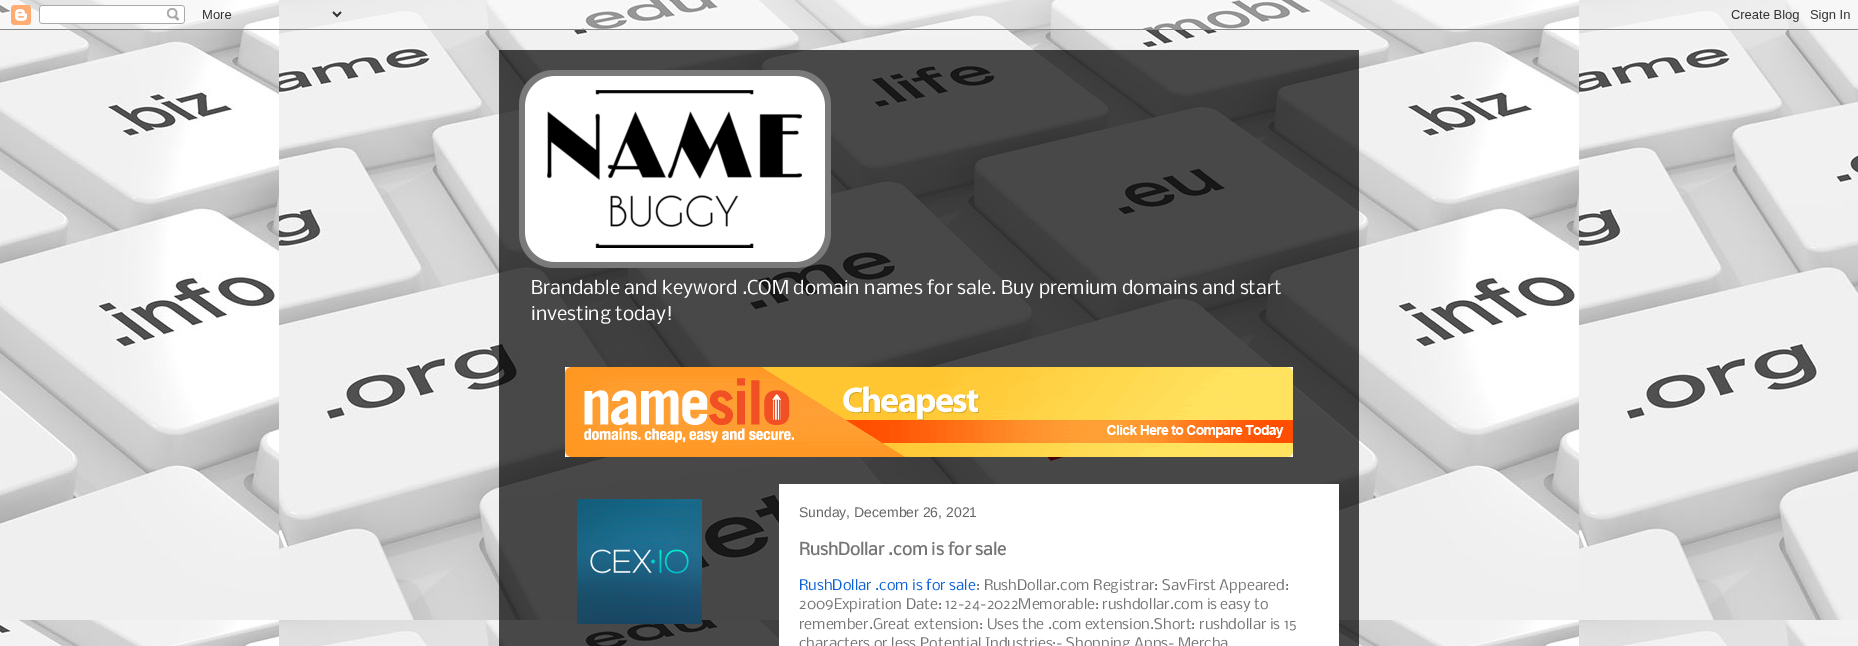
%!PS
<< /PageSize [1858 646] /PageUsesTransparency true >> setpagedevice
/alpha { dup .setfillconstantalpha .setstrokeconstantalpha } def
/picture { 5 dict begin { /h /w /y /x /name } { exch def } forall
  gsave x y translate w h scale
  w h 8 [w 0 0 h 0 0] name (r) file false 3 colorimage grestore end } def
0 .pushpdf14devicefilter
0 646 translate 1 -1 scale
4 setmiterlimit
1 setgray
0 0 1858 646 rectfill
(img1.rgb) 0 0 1858 646 picture
(img2.rgb) 0 0 1858 30 picture
0.7 alpha
0 setgray
499 50 860 596 rectfill
1 alpha
(img3.rgb) 519 70 312 198 picture
/Nobile-Regular [18.2 0 0 -18.2 0 0] selectfont
1 setgray
531 294 moveto (Brandable and keyword .COM domain names for sale. Buy premium domains and start) show
531 320 moveto (investing today!) show
(img4.rgb) 565 367 728 90 picture
(img5.rgb) 577 499 125 125 picture
779 484 560 162 rectfill
/LiberationSans-Regular [14 0 0 -14 0 0] selectfont
0.4 setgray
799 517 moveto (Sunday, December 26, 2021) show
/Nobile-Bold [16.4 0 0 -16.4 0 0] selectfont
0.459 setgray
799 555 moveto (RushDollar .com is for sale) show
/Nobile-Regular [14 0 0 -14 0 0] selectfont
0.039 0.384 0.839 setrgbcolor
799 590 moveto (RushDollar .com is for sale) show
0.459 setgray
976 590 moveto (: RushDollar.com Registrar: SavFirst Appeared:) show
799 609 moveto (2009Expiration Date: 12-24-2022Memorable: rushdollar.com is easy to) show
799 629 moveto (remember.Great extension: Uses the .com extension.Short: rushdollar is 15) show
799 648 moveto (characters or less.Potential Industries:- Shopping Apps- Mercha) show
.poppdf14devicefilter showpage
